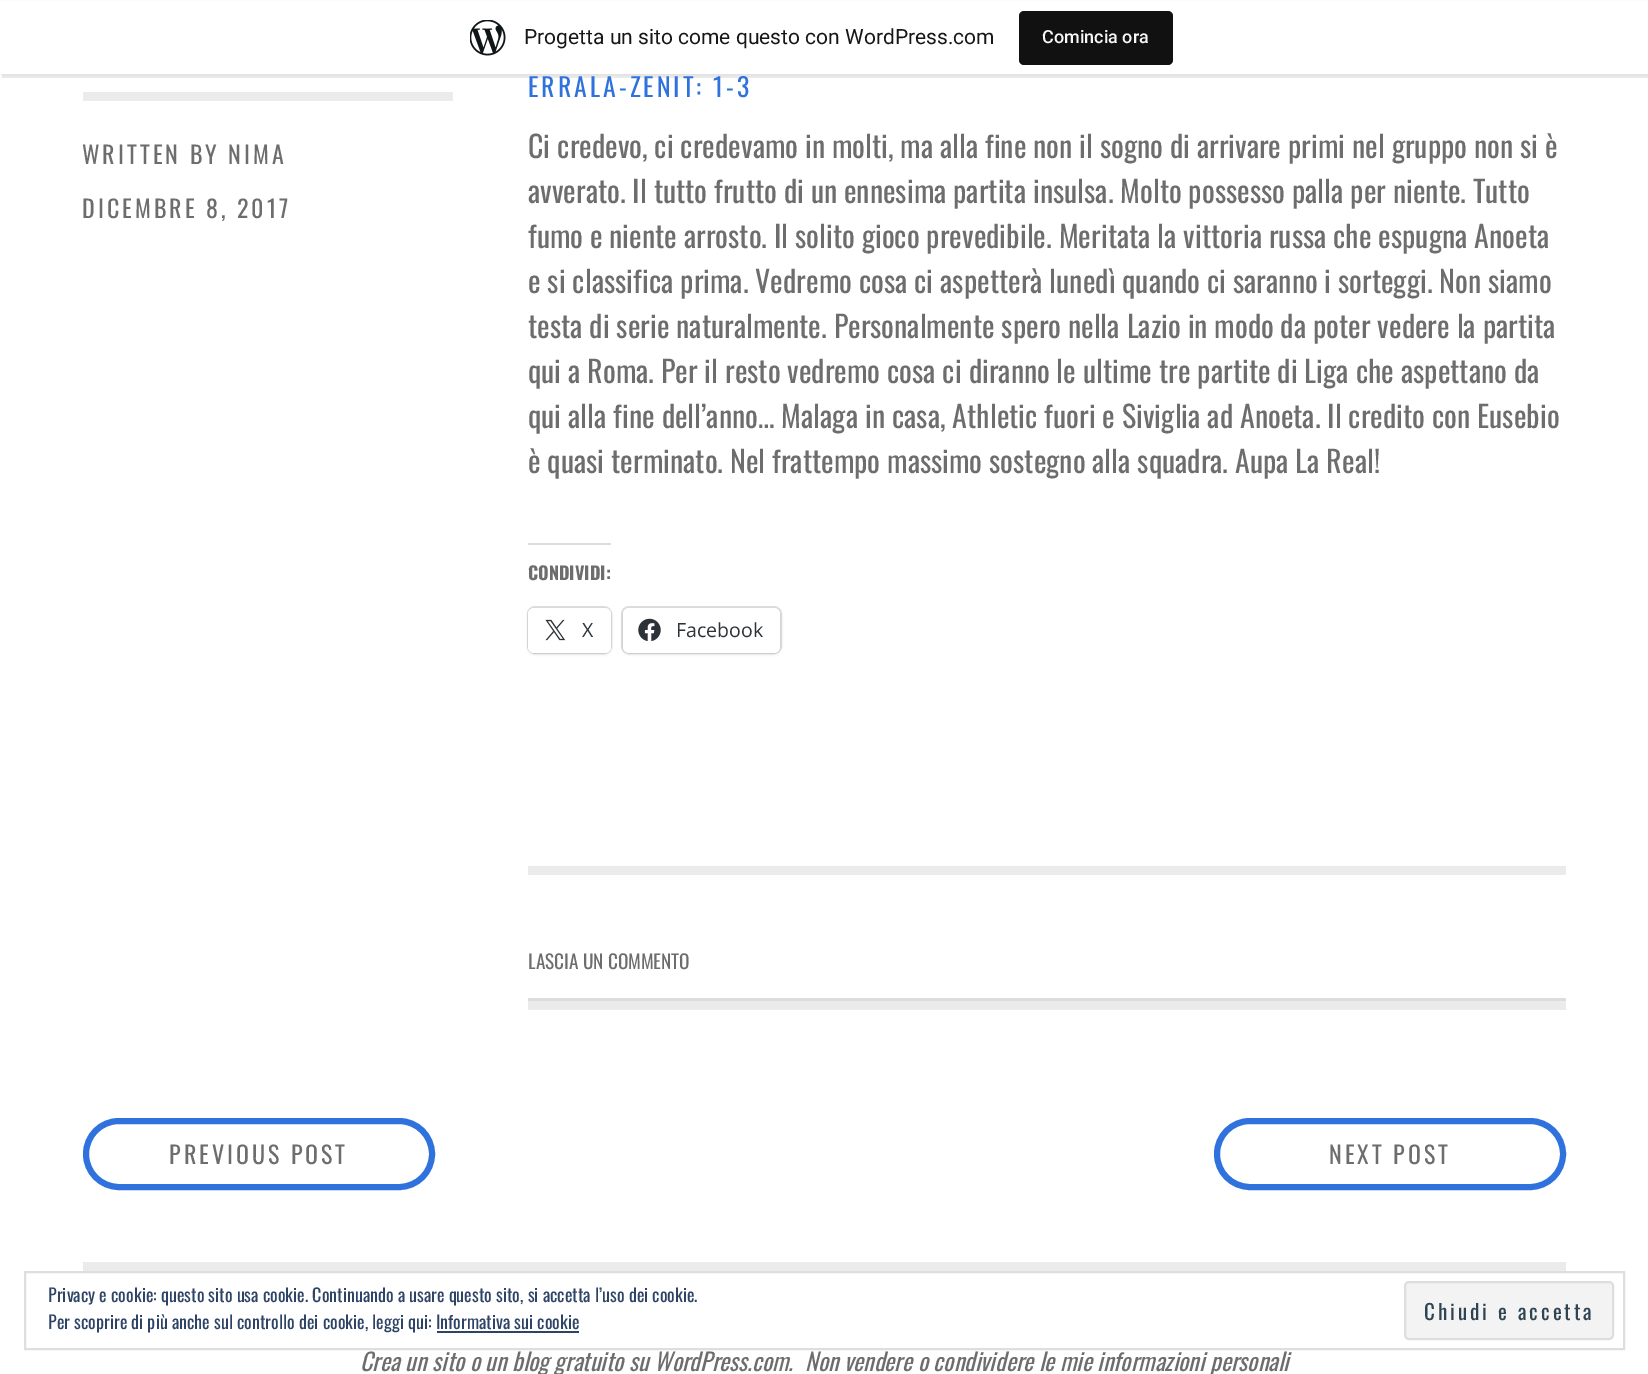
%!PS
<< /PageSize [1648 1374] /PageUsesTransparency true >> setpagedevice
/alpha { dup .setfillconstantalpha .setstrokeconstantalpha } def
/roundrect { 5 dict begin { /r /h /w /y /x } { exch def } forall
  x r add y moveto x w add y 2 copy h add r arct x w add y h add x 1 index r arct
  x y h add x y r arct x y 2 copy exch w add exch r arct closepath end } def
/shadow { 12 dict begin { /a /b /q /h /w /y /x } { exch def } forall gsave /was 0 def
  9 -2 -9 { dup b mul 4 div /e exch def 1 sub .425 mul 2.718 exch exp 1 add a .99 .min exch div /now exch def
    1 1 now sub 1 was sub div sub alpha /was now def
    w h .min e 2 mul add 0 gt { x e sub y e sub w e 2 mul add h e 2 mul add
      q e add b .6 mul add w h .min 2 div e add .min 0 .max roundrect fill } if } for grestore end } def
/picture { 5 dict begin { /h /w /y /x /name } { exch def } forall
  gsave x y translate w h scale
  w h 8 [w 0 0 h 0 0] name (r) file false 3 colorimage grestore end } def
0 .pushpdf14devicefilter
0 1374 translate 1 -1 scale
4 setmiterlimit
1 setgray
0 0 1648 1374 rectfill
0 setgray
0 2 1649 73 0 1.5 0.05 shadow
0.08 alpha
newpath 2 74 moveto 2 78 lineto 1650 78 lineto 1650 5 lineto 1648 5 lineto 1648 74 lineto closepath fill
1 alpha
1 setgray
0 1 1648 73 rectfill
(img1.rgb) 470 20 36 36 picture
/Roboto-Regular [21 0 0 -21 0 0] selectfont
0.09 setgray
524 44 moveto (Progetta un sito come questo con WordPress.com) show
0.067 setgray
1019 11 154 54 5 roundrect fill
/Roboto-Medium [18 0 0 -18 0 0] selectfont
0.965 0.969 0.969 setrgbcolor
1042 43 moveto (Comincia ora) show
/Oswald-Regular [25.75 0 0 -25.75 0 0] selectfont
0.184 0.447 0.871 setrgbcolor
528 97 moveto 3 0 (ERRALA-ZENIT: 1-3) ashow
0.922 setgray
83 92 370 9 rectfill
/Oswald-Regular [24 0 0 -24 0 0] selectfont
0.427 setgray
82 164 moveto 3 0 (WRITTEN BY NIMA) ashow
82 218 moveto 3 0 (DICEMBRE 8, 2017) ashow
/Oswald-Regular [30 0 0 -30 0 0] selectfont
528 158 moveto (Ci credevo, ci credevamo in molti, ma alla fine non il sogno di arrivare primi nel gruppo non si è) show
528 203 moveto (avverato. Il tutto frutto di un ennesima partita insulsa. Molto possesso palla per niente. Tutto) show
528 248 moveto (fumo e niente arrosto. Il solito gioco prevedibile. Meritata la vittoria russa che espugna Anoeta) show
528 293 moveto (e si classifica prima. Vedremo cosa ci aspetterà lunedì quando ci saranno i sorteggi. Non siamo) show
528 338 moveto (testa di serie naturalmente. Personalmente spero nella Lazio in modo da poter vedere la partita) show
528 383 moveto (qui a Roma. Per il resto vedremo cosa ci diranno le ultime tre partite di Liga che aspettano da) show
528 428 moveto (qui alla fine dell’anno… Malaga in casa, Athletic fuori e Siviglia ad Anoeta. Il credito con Eusebio) show
528 473 moveto (è quasi terminato. Nel frattempo massimo sostegno alla squadra. Aupa La Real!) show
0.863 0.863 0.871 setrgbcolor
528 543 83 2 rectfill
/Oswald-Bold [18 0 0 -18 0 0] selectfont
0.427 setgray
528 580 moveto (CONDIVIDI:) show
0.878 setgray
2 setlinewidth
528 607 83 46 7 roundrect stroke
0 setgray
528 609 83 45 6 1.5 0.12 shadow
1 setgray
528 608 83 45 6 roundrect fill
(img2.rgb) 545 619 21 22 picture
/OpenSans-Regular [19.5 0 0 -19.5 0 0] selectfont
0.173 0.2 0.22 setrgbcolor
582 637 moveto (X) show
0.878 setgray
622 607 159 46 7 roundrect stroke
0 setgray
623 609 157 45 6 1.5 0.12 shadow
1 setgray
623 608 157 45 6 roundrect fill
(img3.rgb) 638 618 23 24 picture
0.173 0.2 0.22 setrgbcolor
676 637 moveto (Facebook) show
0.922 setgray
528 866 1038 9 rectfill
/Oswald-Regular [19.25 0 0 -19.25 0 0] selectfont
0.427 setgray
528 969 moveto (LASCIA UN COMMENTO) show
0.863 0.863 0.871 setrgbcolor
528 998 1038 3 rectfill
0.922 setgray
528 1001 1038 9 rectfill
0.184 0.447 0.871 setrgbcolor
6 setlinewidth
86 1121 346 66 33 roundrect stroke
/Oswald-Regular [24 0 0 -24 0 0] selectfont
0.427 setgray
169 1164 moveto 3 0 (PREVIOUS POST) ashow
0.184 0.447 0.871 setrgbcolor
1217 1121 346 66 33 roundrect stroke
0.427 setgray
1329 1164 moveto 3 0 (NEXT POST) ashow
0.922 setgray
83 1262 1483 9 rectfill
/Oswald-Italic [24 0 0 -24 0 0] selectfont
0.427 setgray
360 1371 moveto (Crea un sito o un blog gratuito su WordPress.com.) show
805 1371 moveto (Non vendere o condividere le mie informazioni personali) show
0.871 setgray
2 setlinewidth
25 1272 1599 77 rectstroke
/Oswald-Regular [18 0 0 -18 0 0] selectfont
0.18 0.267 0.404 setrgbcolor
48 1302 moveto (Privacy e cookie: questo sito usa cookie. Continuando a usare questo sito, si accetta l’uso dei cookie.) show
0.953 setgray
1405 1282 208 57 4 roundrect gsave fill grestore
0.871 setgray
stroke
/Oswald-Regular [21 0 0 -21 0 0] selectfont
0.18 0.267 0.325 setrgbcolor
1424 1320 moveto 3 0 (Chiudi e accetta) ashow
/Oswald-Regular [18 0 0 -18 0 0] selectfont
0.18 0.267 0.404 setrgbcolor
48 1329 moveto (Per scoprire di più anche sul controllo dei cookie, leggi qui: Informativa sui cookie) show
437 1331 142 2 rectfill
.poppdf14devicefilter showpage
